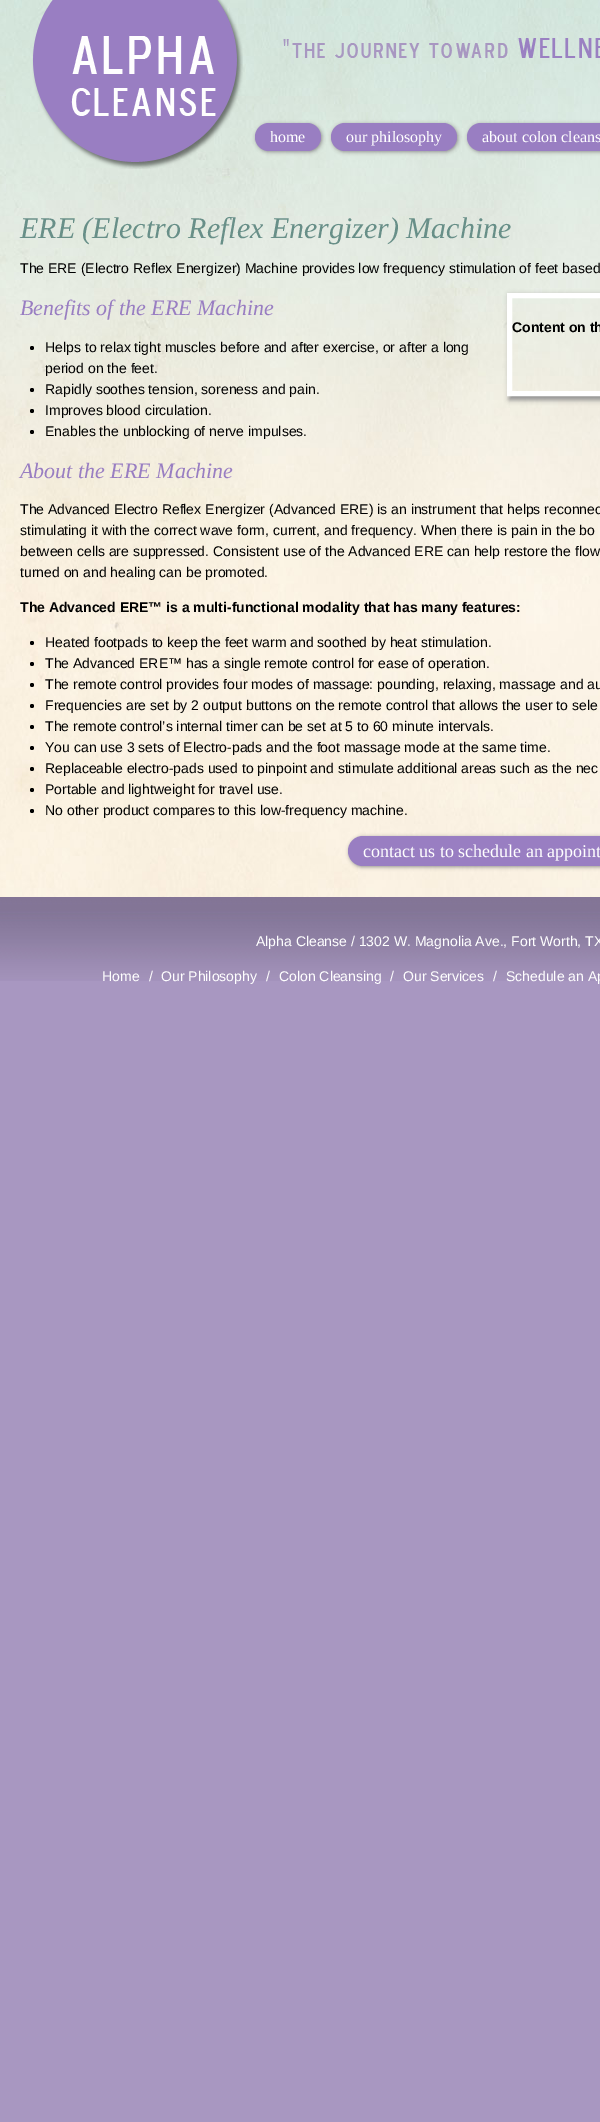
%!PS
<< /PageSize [600 2122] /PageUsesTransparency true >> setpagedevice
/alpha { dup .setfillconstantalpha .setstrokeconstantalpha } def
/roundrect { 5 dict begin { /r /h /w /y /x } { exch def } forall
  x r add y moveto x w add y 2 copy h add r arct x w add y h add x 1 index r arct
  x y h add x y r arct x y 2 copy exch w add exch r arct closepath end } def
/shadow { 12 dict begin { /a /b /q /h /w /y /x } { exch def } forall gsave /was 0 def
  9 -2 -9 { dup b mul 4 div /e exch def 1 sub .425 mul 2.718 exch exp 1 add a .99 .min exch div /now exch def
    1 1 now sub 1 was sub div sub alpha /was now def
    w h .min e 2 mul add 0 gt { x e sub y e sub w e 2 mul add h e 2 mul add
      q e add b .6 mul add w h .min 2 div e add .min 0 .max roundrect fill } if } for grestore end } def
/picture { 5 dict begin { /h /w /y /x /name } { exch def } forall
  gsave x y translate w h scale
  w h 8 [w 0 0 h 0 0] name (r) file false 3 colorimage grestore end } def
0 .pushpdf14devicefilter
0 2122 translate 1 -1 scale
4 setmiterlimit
0.659 0.592 0.757 setrgbcolor
0 0 600 2122 rectfill
(img1.rgb) 0 0 600 897 picture
(img2.rgb) 32 0 211 169 picture
(img3.rgb) 283 38 317 20 picture
0.561 setgray
256 124 66 28 14 2 1 shadow
0.6 0.494 0.761 setrgbcolor
255 123 66 28 14 roundrect fill
/LiberationSerif-Regular [16 0 0 -16 0 0] selectfont
1 setgray
270 142 moveto (home) show
0.561 setgray
332 124 126 28 14 2 1 shadow
0.6 0.494 0.761 setrgbcolor
331 123 126 28 14 roundrect fill
1 setgray
346 142 moveto (our philosophy) show
0.561 setgray
468 124 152 28 14 2 1 shadow
0.6 0.494 0.761 setrgbcolor
467 123 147 28 14 roundrect fill
1 setgray
482 142 moveto (about colon cleans) show
/LiberationSerif-Italic [30 0 0 -30 0 0] selectfont
0.408 0.561 0.533 setrgbcolor
20 238 moveto (ERE \(Electro Reflex Energizer\) Machine) show
/LiberationSans-Regular [14 0 0 -14 0 0] selectfont
0 setgray
20 273 moveto (The ERE \(Electro Reflex Energizer\) Machine provides low frequency stimulation of feet based) show
/LiberationSerif-Italic [22 0 0 -22 0 0] selectfont
0.6 0.494 0.761 setrgbcolor
20 315 moveto (Benefits of the ERE Machine) show
gsave
newpath 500 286 moveto 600 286 lineto 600 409 lineto 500 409 lineto closepath 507 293 moveto 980 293 lineto 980 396 lineto 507 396 lineto closepath eoclip newpath
0.561 setgray
509 295 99 105 0 2.5 1 shadow
grestore
1 setgray
5 setlinewidth
509.5 295.5 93 98 rectstroke
/LiberationSans-Bold [14 0 0 -14 0 0] selectfont
0 setgray
512 332 moveto (Content on th) show
newpath 32 348 2 0 360 arc closepath fill
/LiberationSans-Regular [14 0 0 -14 0 0] selectfont
45 352 moveto (Helps to relax tight muscles before and after exercise, or after a long) show
45 373 moveto (period on the feet.) show
newpath 32 390 2 0 360 arc closepath fill
45 394 moveto (Rapidly soothes tension, soreness and pain.) show
newpath 32 411 2 0 360 arc closepath fill
45 415 moveto (Improves blood circulation.) show
newpath 32 432 2 0 360 arc closepath fill
45 436 moveto (Enables the unblocking of nerve impulses.) show
/LiberationSerif-Italic [22 0 0 -22 0 0] selectfont
0.6 0.494 0.761 setrgbcolor
20 478 moveto (About the ERE Machine) show
/LiberationSans-Regular [14 0 0 -14 0 0] selectfont
0 setgray
20 514 moveto (The Advanced Electro Reflex Energizer \(Advanced ERE\) is an instrument that helps reconnec) show
20 535 moveto (stimulating it with the correct wave form, current, and frequency. When there is pain in the bo) show
20 556 moveto (between cells are suppressed. Consistent use of the Advanced ERE can help restore the flow) show
20 577 moveto (turned on and healing can be promoted.) show
/LiberationSans-Bold [14 0 0 -14 0 0] selectfont
20 612 moveto (The Advanced ERE™ is a multi-functional modality that has many features:) show
newpath 32 643 2 0 360 arc closepath fill
/LiberationSans-Regular [14 0 0 -14 0 0] selectfont
45 647 moveto (Heated footpads to keep the feet warm and soothed by heat stimulation.) show
newpath 32 664 2 0 360 arc closepath fill
45 668 moveto (The Advanced ERE™ has a single remote control for ease of operation.) show
newpath 32 685 2 0 360 arc closepath fill
45 689 moveto (The remote control provides four modes of massage: pounding, relaxing, massage and au) show
newpath 32 706 2 0 360 arc closepath fill
45 710 moveto (Frequencies are set by 2 output buttons on the remote control that allows the user to sele) show
newpath 32 727 2 0 360 arc closepath fill
45 731 moveto (The remote control’s internal timer can be set at 5 to 60 minute intervals.) show
newpath 32 748 2 0 360 arc closepath fill
45 752 moveto (You can use 3 sets of Electro-pads and the foot massage mode at the same time.) show
newpath 32 769 2 0 360 arc closepath fill
45 773 moveto (Replaceable electro-pads used to pinpoint and stimulate additional areas such as the nec) show
newpath 32 790 2 0 360 arc closepath fill
45 794 moveto (Portable and lightweight for travel use.) show
newpath 32 811 2 0 360 arc closepath fill
45 815 moveto (No other product compares to this low-frequency machine.) show
0.561 setgray
349 837 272 30 15 2 1 shadow
0.6 0.494 0.761 setrgbcolor
348 836 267 30 15 roundrect fill
/LiberationSerif-Regular [18 0 0 -18 0 0] selectfont
1 setgray
363 857 moveto (contact us to schedule an appoint) show
(img4.rgb) 0 897 600 84 picture
/LiberationSans-Regular [14 0 0 -14 0 0] selectfont
256 946 moveto (Alpha Cleanse / 1302 W. Magnolia Ave., Fort Worth, TX) show
102 981 moveto (Home) show
149 981 moveto (/) show
161 981 moveto (Our Philosophy) show
266 981 moveto (/) show
279 981 moveto (Colon Cleansing) show
390 981 moveto (/) show
403 981 moveto (Our Services) show
493 981 moveto (/) show
506 981 moveto (Schedule an Ap) show
.poppdf14devicefilter showpage
